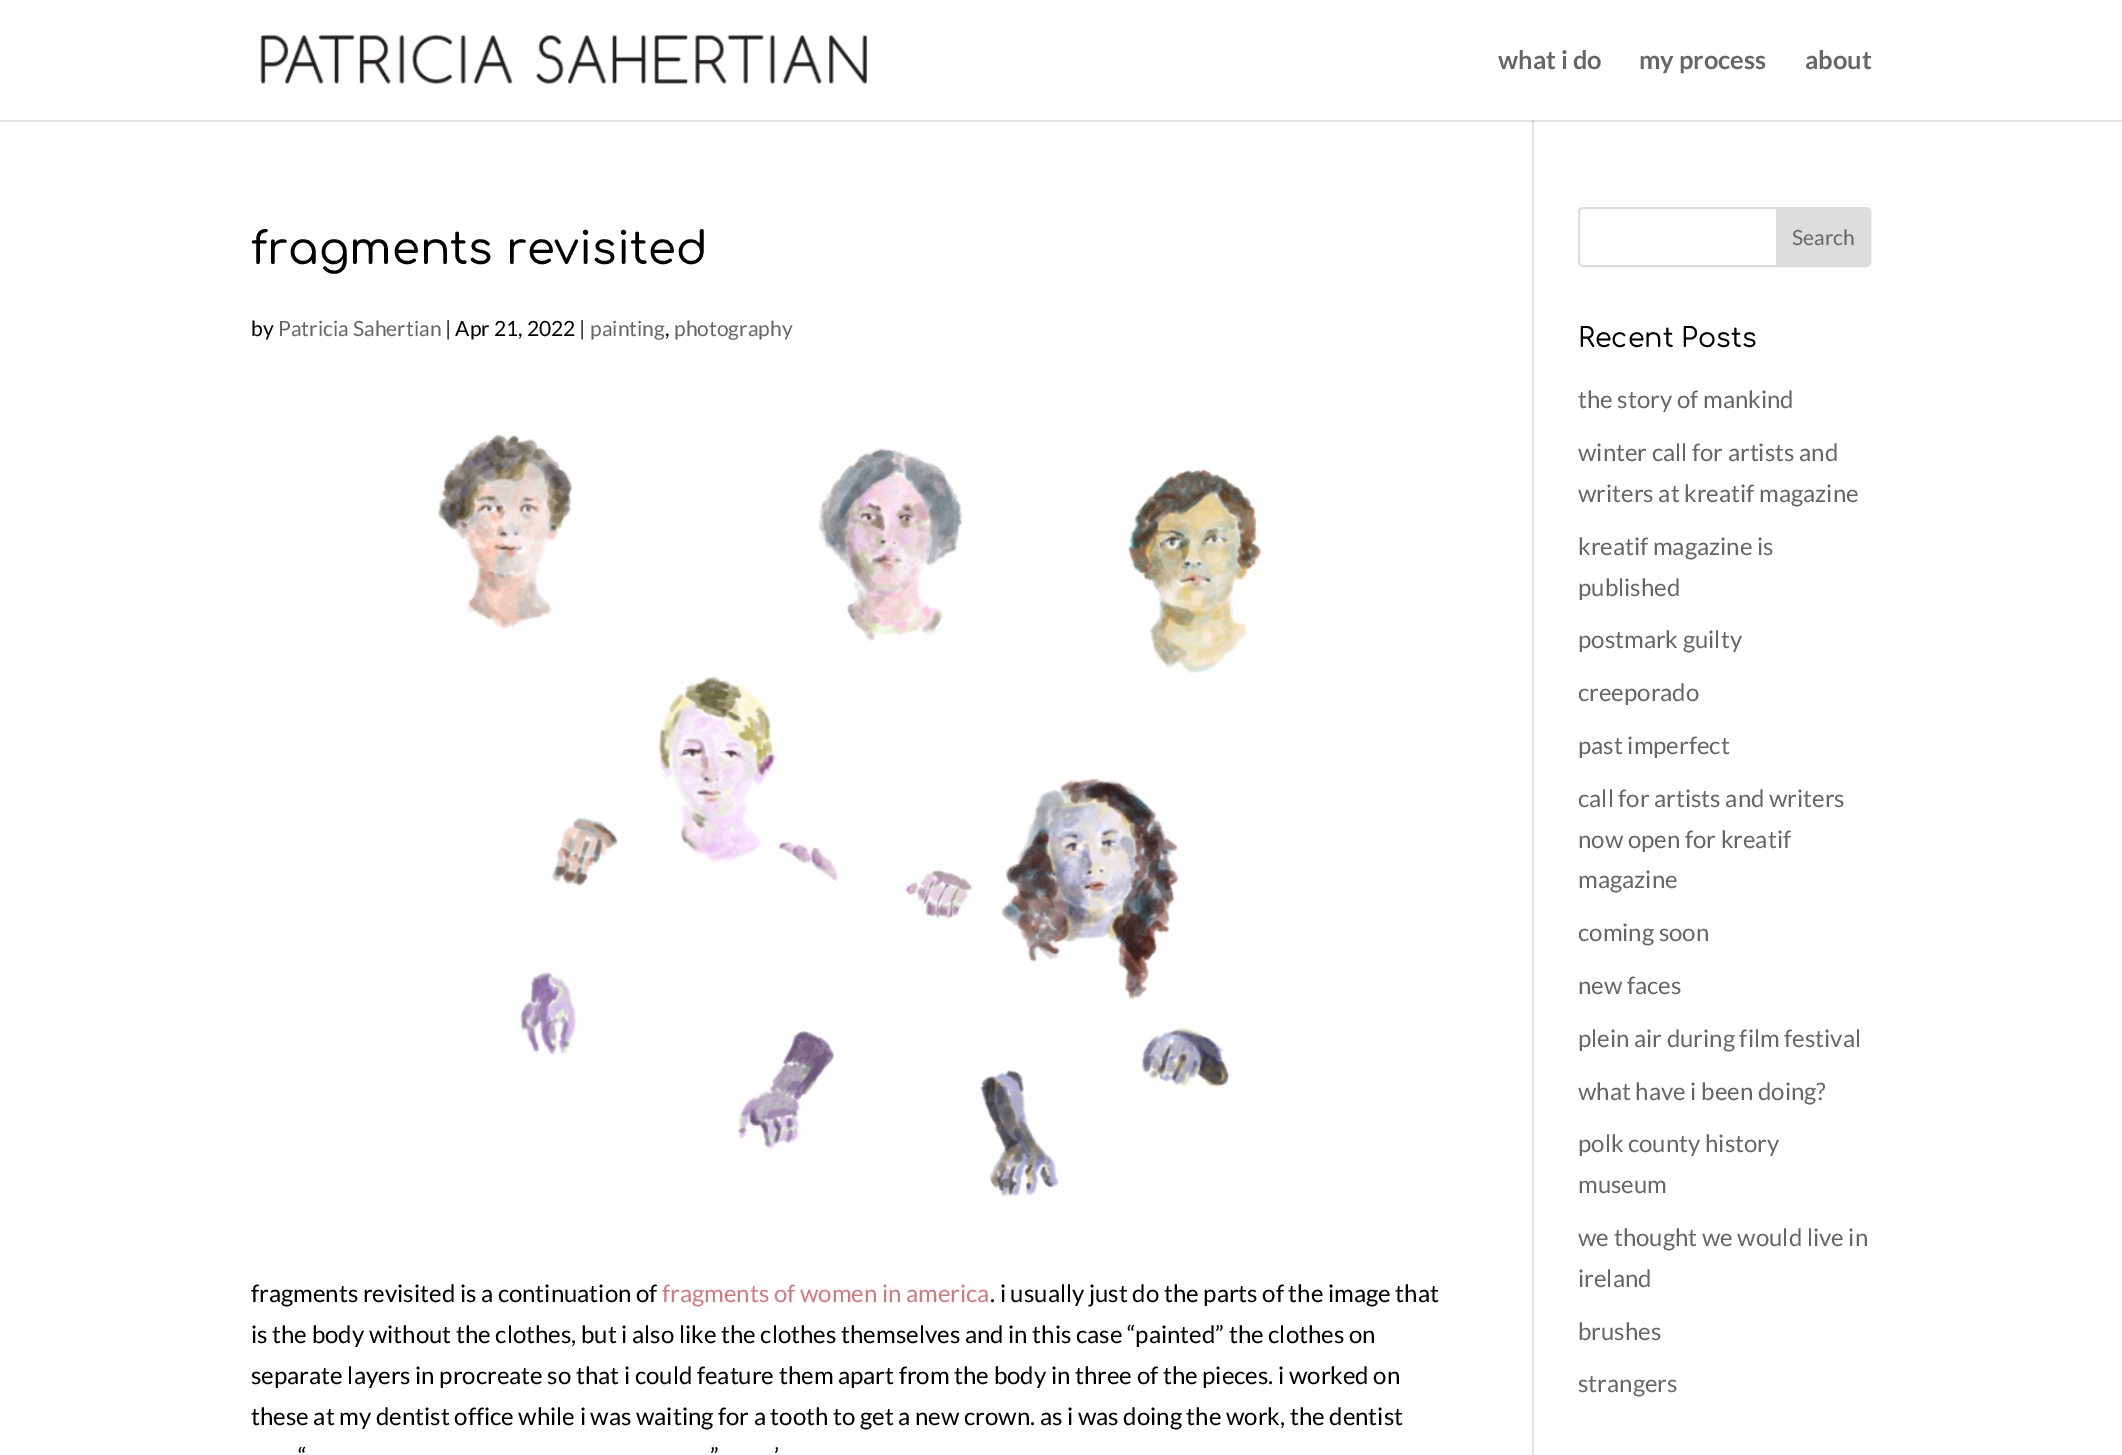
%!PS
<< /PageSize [2122 1455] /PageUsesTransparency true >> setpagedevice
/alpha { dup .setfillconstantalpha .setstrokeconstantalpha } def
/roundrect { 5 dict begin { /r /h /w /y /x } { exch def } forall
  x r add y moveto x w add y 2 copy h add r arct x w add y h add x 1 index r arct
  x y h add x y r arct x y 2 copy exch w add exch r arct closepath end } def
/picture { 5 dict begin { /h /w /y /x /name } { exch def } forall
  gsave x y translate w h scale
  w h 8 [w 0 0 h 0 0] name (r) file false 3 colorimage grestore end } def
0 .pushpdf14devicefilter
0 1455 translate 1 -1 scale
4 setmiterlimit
1 setgray
0 0 2122 1455 rectfill
0.886 setgray
1532 120 2 1335 rectfill
0.1 alpha
0 setgray
newpath 0 120 moveto 0 122 lineto 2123 122 lineto 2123 2 lineto 2122 2 lineto 2122 120 lineto closepath fill
1 alpha
(img1.rgb) 260 34 608 50 picture
/Lato-Bold [25.5 0 0 -25.5 0 0] selectfont
0.4 setgray
1498 69 moveto (what i do) show
1639 69 moveto (my process) show
1805 69 moveto (about) show
/Comfortaa-Medium [45 0 0 -45 0 0] selectfont
0 setgray
251 264 moveto (fragments revisited) show
/Lato-Regular [21 0 0 -21 0 0] selectfont
251 336 moveto (by) show
0.4 setgray
278 336 moveto (Patricia Sahertian) show
0 setgray
445 336 moveto (| Apr 21, 2022 |) show
0.4 setgray
590 336 moveto (painting) show
0 setgray
665 336 moveto (,) show
0.4 setgray
674 336 moveto (photography) show
(img2.rgb) 438 434 824 763 picture
/Lato-Regular [24 0 0 -24 0 0] selectfont
0 setgray
251 1302 moveto (fragments revisited is a continuation of) show
0.82 0.475 0.51 setrgbcolor
662 1302 moveto (fragments of women in america) show
0 setgray
990 1302 moveto (. i usually just do the parts of the image that) show
251 1343 moveto (is the body without the clothes, but i also like the clothes themselves and in this case “painted” the clothes on) show
251 1384 moveto (separate layers in procreate so that i could feature them apart from the body in three of the pieces. i worked on) show
251 1425 moveto (these at my dentist office while i was waiting for a tooth to get a new crown. as i was doing the work, the dentist) show
298 1465 moveto (“) show
710 1465 moveto (”) show
774 1465 moveto (’) show
0.867 setgray
2 setlinewidth
1579 208 291 58 4 roundrect stroke
newpath 1777 208 moveto 1866 208 lineto 1868 208 1870 210 1870 212 curveto 1870 262 lineto 1870 264 1868 266 1866 266 curveto 1777 266 lineto closepath gsave fill grestore
stroke
/Lato-Regular [21 0 0 -21 0 0] selectfont
0.4 setgray
1792 245 moveto (Search) show
/Comfortaa-Medium [27 0 0 -27 0 0] selectfont
0 setgray
1578 347 moveto (Recent Posts) show
/Lato-Regular [24 0 0 -24 0 0] selectfont
0.4 setgray
1578 408 moveto (the story of mankind) show
1578 461 moveto (winter call for artists and) show
1578 502 moveto (writers at kreatif magazine) show
1578 555 moveto (kreatif magazine is) show
1578 596 moveto (published) show
1578 648 moveto (postmark guilty) show
1578 701 moveto (creeporado) show
1578 754 moveto (past imperfect) show
1578 807 moveto (call for artists and writers) show
1578 848 moveto (now open for kreatif) show
1578 888 moveto (magazine) show
1578 941 moveto (coming soon) show
1578 994 moveto (new faces) show
1578 1047 moveto (plein air during film festival) show
1578 1100 moveto (what have i been doing?) show
1578 1152 moveto (polk county history) show
1578 1193 moveto (museum) show
1578 1246 moveto (we thought we would live in) show
1578 1287 moveto (ireland) show
1578 1340 moveto (brushes) show
1578 1392 moveto (strangers) show
.poppdf14devicefilter showpage
